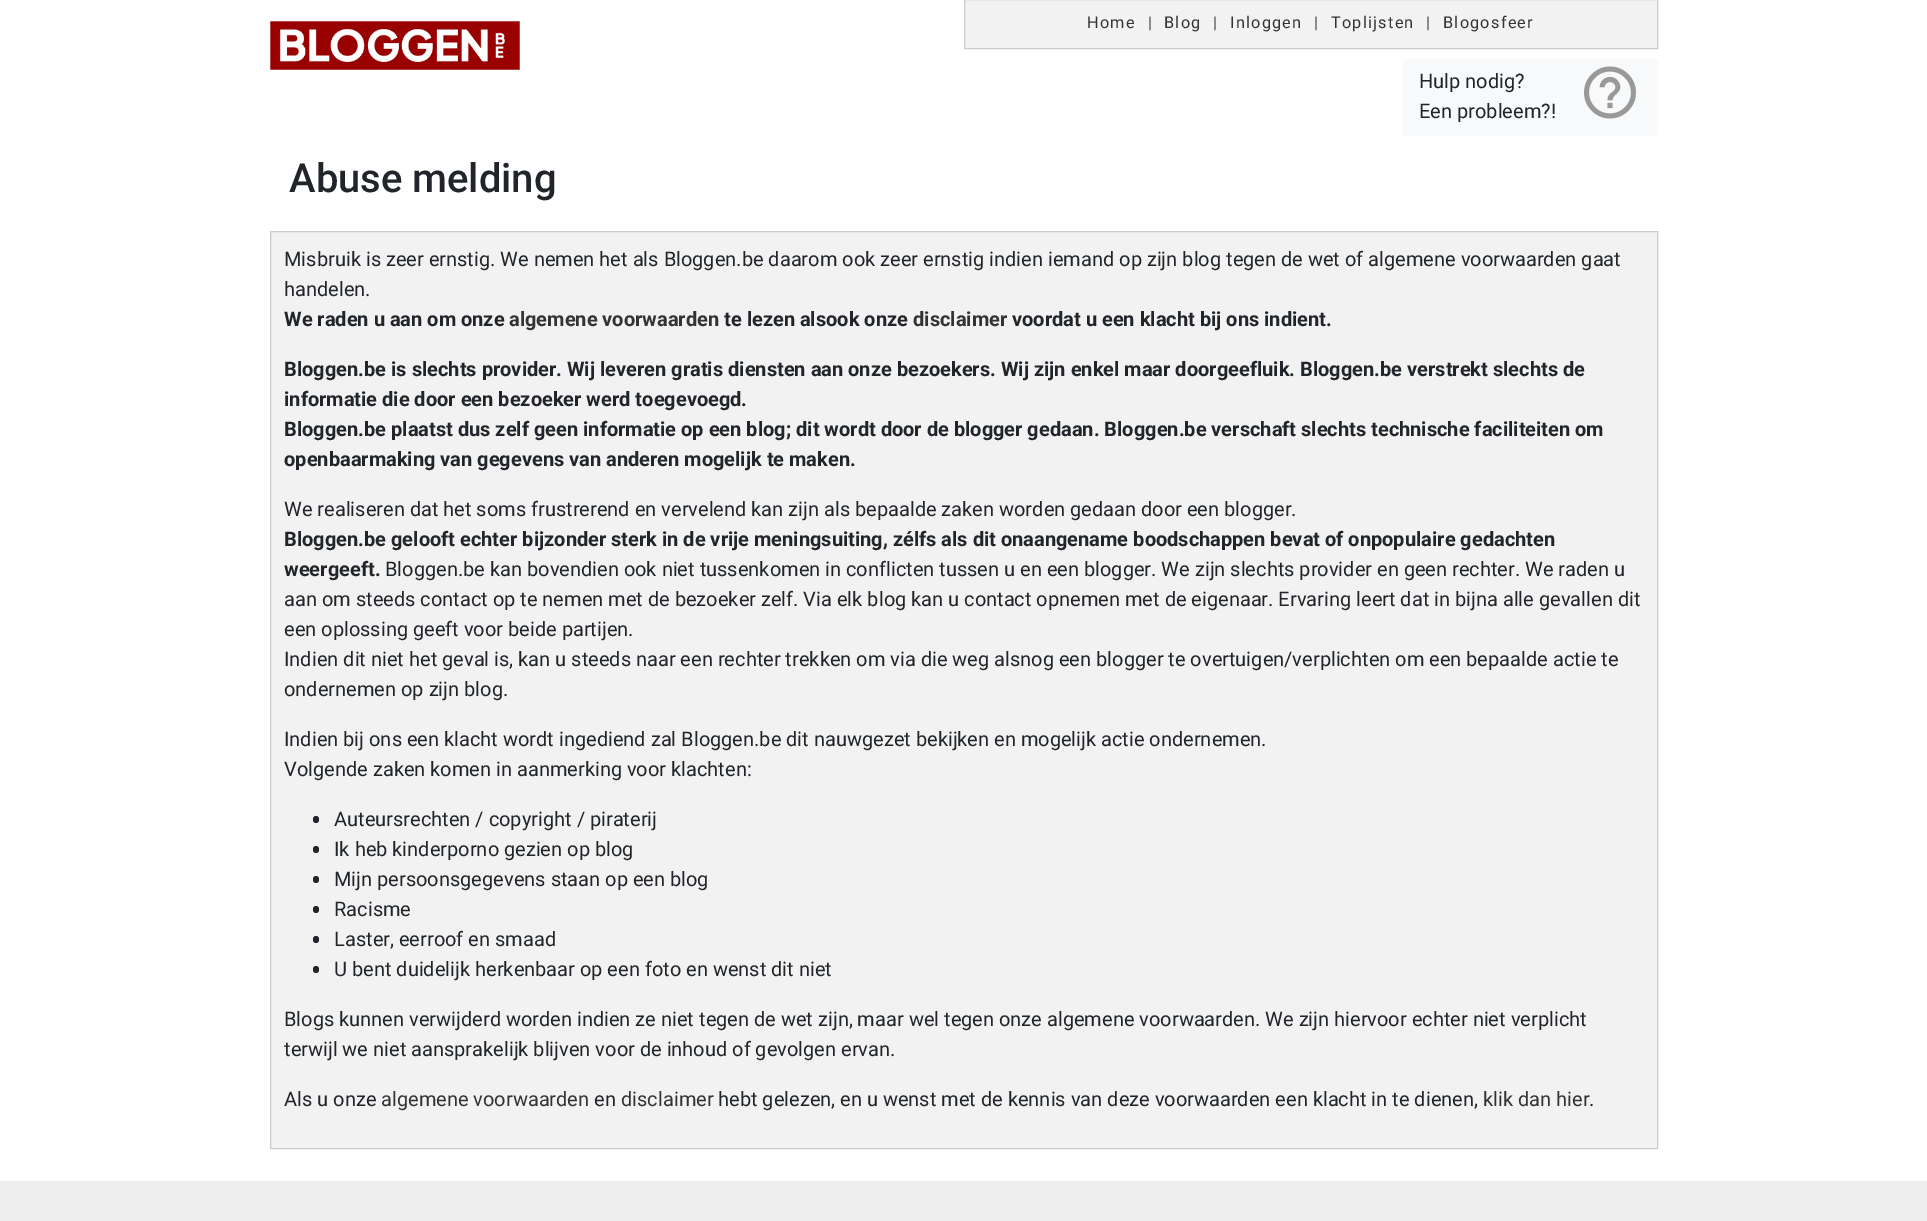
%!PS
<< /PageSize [1927 1221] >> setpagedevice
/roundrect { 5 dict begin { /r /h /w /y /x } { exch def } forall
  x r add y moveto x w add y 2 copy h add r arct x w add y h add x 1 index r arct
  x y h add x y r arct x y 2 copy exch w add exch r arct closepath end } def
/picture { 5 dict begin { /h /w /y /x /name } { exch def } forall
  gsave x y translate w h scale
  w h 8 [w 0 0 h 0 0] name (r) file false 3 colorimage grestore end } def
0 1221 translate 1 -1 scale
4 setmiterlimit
1 setgray
0 0 1927 1221 rectfill
(img1.rgb) 270 21 250 49 picture
0.949 setgray
newpath 964.5 -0.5 moveto 1657.5 -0.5 lineto 1657.5 48.5 lineto 964.5 48.5 lineto closepath gsave fill grestore
0.8 setgray
stroke
/Roboto-Regular [16.25 0 0 -16.25 0 0] selectfont
0.2 setgray
1087 28 moveto 1.25 0 (Home) ashow
1148 28 moveto 1.25 0 (|) ashow
1164 28 moveto 1.25 0 (Blog) ashow
1213 28 moveto 1.25 0 (|) ashow
1230 28 moveto 1.25 0 (Inloggen) ashow
1314 28 moveto 1.25 0 (|) ashow
1331 28 moveto 1.25 0 (Toplijsten) ashow
1426 28 moveto 1.25 0 (|) ashow
1443 28 moveto 1.25 0 (Blogosfeer) ashow
0.973 0.976 0.98 setrgbcolor
1403 59 255 77 5 roundrect fill
/Roboto-Regular [20 0 0 -20 0 0] selectfont
0.129 0.145 0.161 setrgbcolor
1419 88 moveto (Hulp nodig?) show
(img2.rgb) 1584 66 52 53 picture
1419 118 moveto (Een probleem?!) show
/Roboto-Medium [40 0 0 -40 0 0] selectfont
289 192 moveto (Abuse melding) show
0.949 setgray
newpath 270.5 231.5 moveto 1657.5 231.5 lineto 1657.5 1148.5 lineto 270.5 1148.5 lineto closepath gsave fill grestore
0.8 setgray
stroke
/Roboto-Regular [20 0 0 -20 0 0] selectfont
0.129 0.145 0.161 setrgbcolor
284 266 moveto (Misbruik is zeer ernstig. We nemen het als Bloggen.be daarom ook zeer ernstig indien iemand op zijn blog tegen de wet of algemene voorwaarden gaat) show
284 296 moveto (handelen.) show
/Roboto-Bold [20 0 0 -20 0 0] selectfont
284 326 moveto (We raden u aan om onze) show
0.2 setgray
509 326 moveto (algemene voorwaarden) show
0.129 0.145 0.161 setrgbcolor
724 326 moveto (te lezen alsook onze) show
0.2 setgray
913 326 moveto (disclaimer) show
0.129 0.145 0.161 setrgbcolor
1012 326 moveto (voordat u een klacht bij ons indient.) show
284 376 moveto (Bloggen.be is slechts provider. Wij leveren gratis diensten aan onze bezoekers. Wij zijn enkel maar doorgeefluik. Bloggen.be verstrekt slechts de) show
284 406 moveto (informatie die door een bezoeker werd toegevoegd.) show
284 436 moveto (Bloggen.be plaatst dus zelf geen informatie op een blog; dit wordt door de blogger gedaan. Bloggen.be verschaft slechts technische faciliteiten om) show
284 466 moveto (openbaarmaking van gegevens van anderen mogelijk te maken.) show
/Roboto-Regular [20 0 0 -20 0 0] selectfont
284 516 moveto (We realiseren dat het soms frustrerend en vervelend kan zijn als bepaalde zaken worden gedaan door een blogger.) show
/Roboto-Bold [20 0 0 -20 0 0] selectfont
284 546 moveto (Bloggen.be gelooft echter bijzonder sterk in de vrije meningsuiting, zélfs als dit onaangename boodschappen bevat of onpopulaire gedachten) show
284 576 moveto (weergeeft.) show
/Roboto-Regular [20 0 0 -20 0 0] selectfont
385 576 moveto (Bloggen.be kan bovendien ook niet tussenkomen in conflicten tussen u en een blogger. We zijn slechts provider en geen rechter. We raden u) show
284 606 moveto (aan om steeds contact op te nemen met de bezoeker zelf. Via elk blog kan u contact opnemen met de eigenaar. Ervaring leert dat in bijna alle gevallen dit) show
284 636 moveto (een oplossing geeft voor beide partijen.) show
284 666 moveto (Indien dit niet het geval is, kan u steeds naar een rechter trekken om via die weg alsnog een blogger te overtuigen/verplichten om een bepaalde actie te) show
284 696 moveto (ondernemen op zijn blog.) show
284 746 moveto (Indien bij ons een klacht wordt ingediend zal Bloggen.be dit nauwgezet bekijken en mogelijk actie ondernemen.) show
284 776 moveto (Volgende zaken komen in aanmerking voor klachten:) show
313 816 6 7 3 roundrect fill
334 826 moveto (Auteursrechten / copyright / piraterij) show
313 846 6 7 3 roundrect fill
334 856 moveto (Ik heb kinderporno gezien op blog) show
313 876 6 7 3 roundrect fill
334 886 moveto (Mijn persoonsgegevens staan op een blog) show
313 906 6 7 3 roundrect fill
334 916 moveto (Racisme) show
313 936 6 7 3 roundrect fill
334 946 moveto (Laster, eerroof en smaad) show
313 966 6 7 3 roundrect fill
334 976 moveto (U bent duidelijk herkenbaar op een foto en wenst dit niet) show
284 1026 moveto (Blogs kunnen verwijderd worden indien ze niet tegen de wet zijn, maar wel tegen onze algemene voorwaarden. We zijn hiervoor echter niet verplicht) show
284 1056 moveto (terwijl we niet aansprakelijk blijven voor de inhoud of gevolgen ervan.) show
284 1106 moveto (Als u onze) show
0.2 setgray
381 1106 moveto (algemene voorwaarden) show
0.129 0.145 0.161 setrgbcolor
594 1106 moveto (en) show
0.2 setgray
621 1106 moveto (disclaimer) show
0.129 0.145 0.161 setrgbcolor
718 1106 moveto (hebt gelezen, en u wenst met de kennis van deze voorwaarden een klacht in te dienen,) show
0.2 setgray
1483 1106 moveto (klik dan hier) show
0.129 0.145 0.161 setrgbcolor
1589 1106 moveto (.) show
0.933 setgray
0 1181 1927 40 rectfill
showpage
